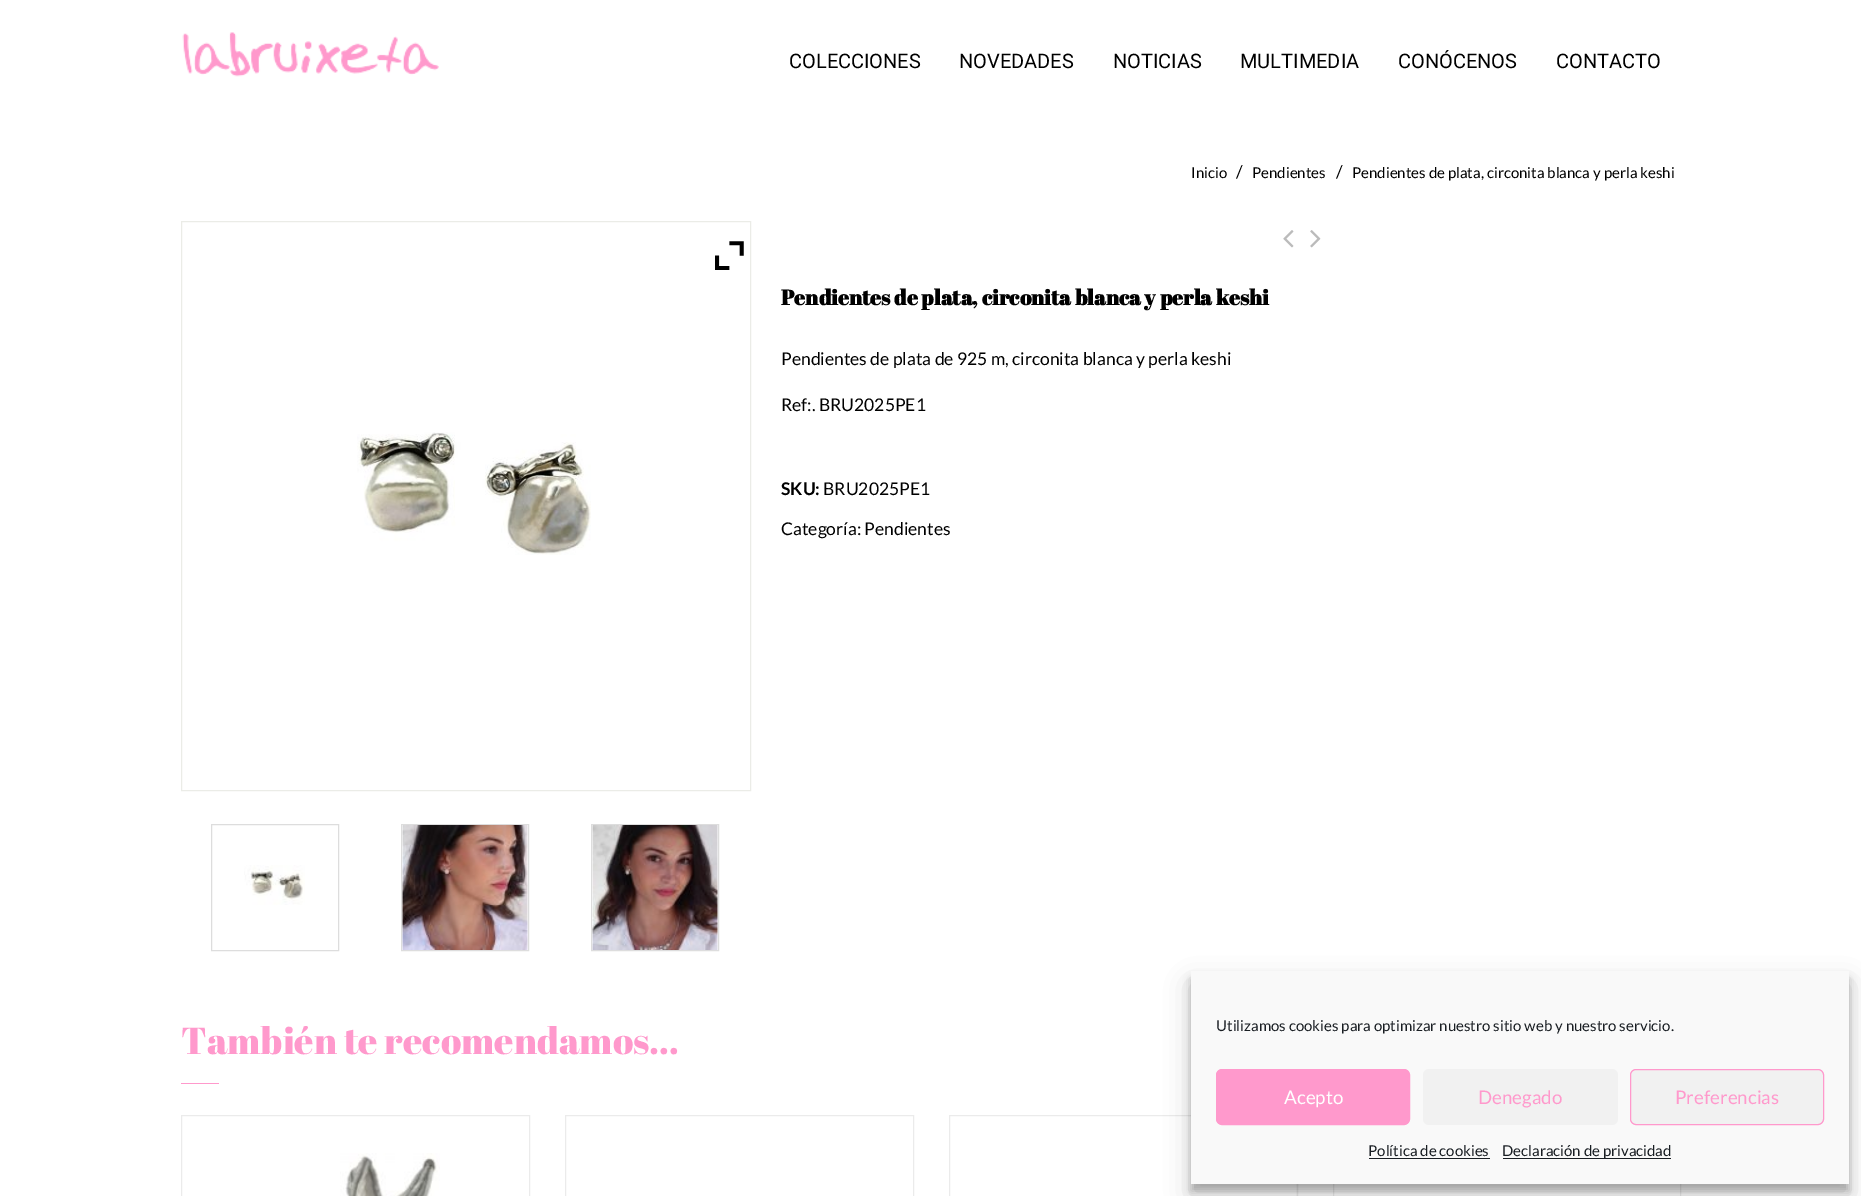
%!PS
<< /PageSize [1861 1196] /PageUsesTransparency true >> setpagedevice
/alpha { dup .setfillconstantalpha .setstrokeconstantalpha } def
/roundrect { 5 dict begin { /r /h /w /y /x } { exch def } forall
  x r add y moveto x w add y 2 copy h add r arct x w add y h add x 1 index r arct
  x y h add x y r arct x y 2 copy exch w add exch r arct closepath end } def
/shadow { 12 dict begin { /a /b /q /h /w /y /x } { exch def } forall gsave /was 0 def
  9 -2 -9 { dup b mul 4 div /e exch def 1 sub .425 mul 2.718 exch exp 1 add a .99 .min exch div /now exch def
    1 1 now sub 1 was sub div sub alpha /was now def
    w h .min e 2 mul add 0 gt { x e sub y e sub w e 2 mul add h e 2 mul add
      q e add b .6 mul add w h .min 2 div e add .min 0 .max roundrect fill } if } for grestore end } def
/picture { 5 dict begin { /h /w /y /x /name } { exch def } forall
  gsave x y translate w h scale
  w h 8 [w 0 0 h 0 0] name (r) file false 3 colorimage grestore end } def
0 .pushpdf14devicefilter
0 1196 translate 1 -1 scale
4 setmiterlimit
1 setgray
0 0 1861 1196 rectfill
(img1.rgb) 182 32 257 45 picture
/Roboto-Regular [20 0 0 -20 0 0] selectfont
0 setgray
789 68 moveto (COLECCIONES) show
959 68 moveto (NOVEDADES) show
1113 68 moveto (NOTICIAS) show
1240 68 moveto (MULTIMEDIA) show
1398 68 moveto (CONÓCENOS) show
1556 68 moveto (CONTACTO) show
/Lato-Regular [15 0 0 -15 0 0] selectfont
1191 178 moveto (Inicio) show
/Lato-Regular [17.5 0 0 -17.5 0 0] selectfont
1236 178 moveto (/) show
/Lato-Regular [15 0 0 -15 0 0] selectfont
1252 178 moveto (Pendientes) show
/Lato-Regular [17.5 0 0 -17.5 0 0] selectfont
1336 178 moveto (/) show
/Lato-Regular [15 0 0 -15 0 0] selectfont
1352 178 moveto (Pendientes de plata, circonita blanca y perla keshi) show
0.922 0.925 0.906 setrgbcolor
181.5 221.5 569 569 rectstroke
(img2.rgb) 357 432 234 123 picture
(img3.rgb) 715 241 29 29 picture
0.867 setgray
211.5 824.5 127 126 rectstroke
(img4.rgb) 244 865 61 40 picture
401.5 824.5 127 126 rectstroke
(img5.rgb) 402 825 126 125 picture
591.5 824.5 127 126 rectstroke
(img6.rgb) 592 825 126 125 picture
(img7.rgb) 1283 230 11 18 picture
(img8.rgb) 1310 230 11 18 picture
/AbrilFatface-Bold [21.25 0 0 -21.25 0 0] selectfont
0 setgray
781 305 moveto (Pendientes de plata, circonita blanca y perla keshi) show
/Lato-Regular [17.5 0 0 -17.5 0 0] selectfont
781 365 moveto (Pendientes de plata de 925 m, circonita blanca y perla keshi) show
781 411 moveto (Ref:. BRU2025PE1) show
/Lato-Bold [17.5 0 0 -17.5 0 0] selectfont
781 495 moveto (SKU:) show
/Lato-Regular [17.5 0 0 -17.5 0 0] selectfont
823 495 moveto (BRU2025PE1) show
781 535 moveto (Categoría: Pendientes) show
/AbrilFatface-Regular [37.5 0 0 -37.5 0 0] selectfont
1 0.6 0.8 setrgbcolor
181 1054 moveto (También te recomendamos…) show
181 1083 38 1 rectfill
0.922 setgray
181.5 1115.5 348 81 rectstroke
(img9.rgb) 340 1153 100 43 picture
565.5 1115.5 348 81 rectstroke
949.5 1115.5 348 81 rectstroke
(img10.rgb) 1296 1184 1 12 picture
1333.5 1115.5 347 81 rectstroke
0 setgray
1191 979 658 212 0 4 0.23 shadow
1191 984 658 212 0 12.5 0.19 shadow
0.976 setgray
1191 971 658 213 rectfill
/Lato-Regular [15 0 0 -15 0 0] selectfont
0.098 0.118 0.137 setrgbcolor
1216 1031 moveto (Utilizamos cookies para optimizar nuestro sitio web y nuestro servicio.) show
1 0.6 0.8 setrgbcolor
1216.5 1069.5 193 55 5.5 roundrect gsave fill grestore
stroke
/Lato-Regular [18.75 0 0 -18.75 0 0] selectfont
1 setgray
1284 1104 moveto (Acepto) show
0.945 setgray
1423 1069 195 56 6 roundrect fill
1 0.6 0.8 setrgbcolor
1478 1104 moveto (Denegado) show
0.945 setgray
1630.5 1069.5 193 55 5.5 roundrect gsave fill grestore
1 0.6 0.8 setrgbcolor
stroke
1675 1104 moveto (Preferencias) show
/Lato-Regular [15 0 0 -15 0 0] selectfont
0.098 0.118 0.137 setrgbcolor
1368 1156 moveto (Política de cookies) show
1369 1158 121 1 rectfill
1503 1158 168 1 rectfill
1502 1156 moveto (Declaración de privacidad) show
.poppdf14devicefilter showpage
